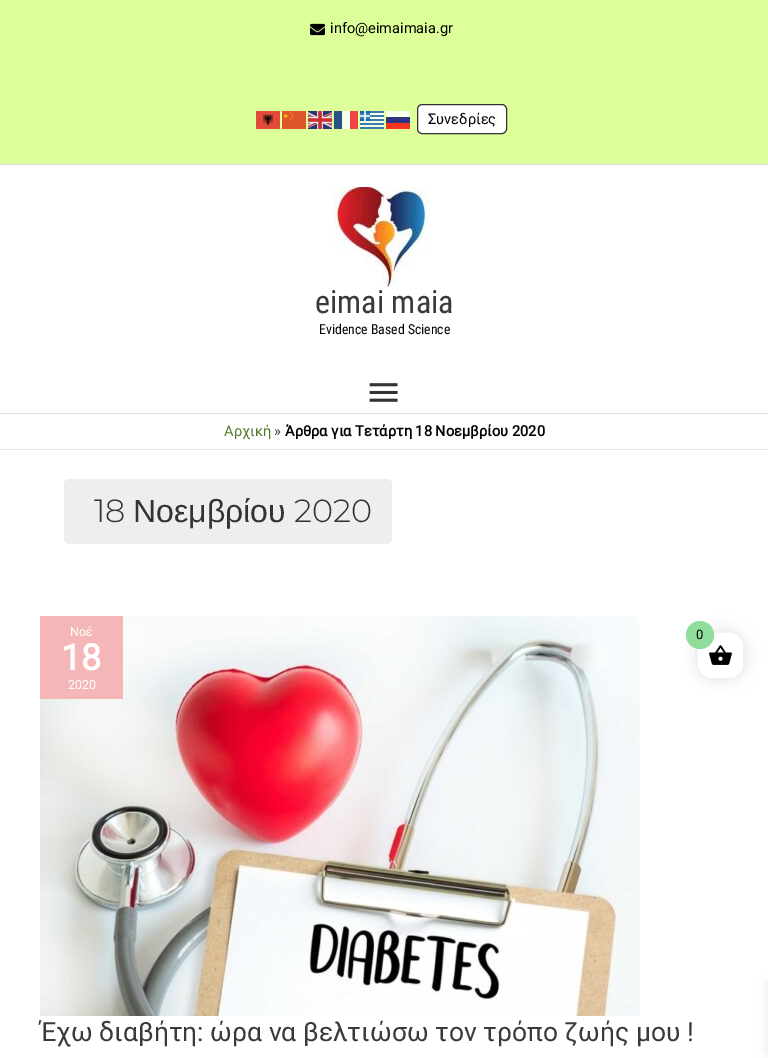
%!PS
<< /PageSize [768 1058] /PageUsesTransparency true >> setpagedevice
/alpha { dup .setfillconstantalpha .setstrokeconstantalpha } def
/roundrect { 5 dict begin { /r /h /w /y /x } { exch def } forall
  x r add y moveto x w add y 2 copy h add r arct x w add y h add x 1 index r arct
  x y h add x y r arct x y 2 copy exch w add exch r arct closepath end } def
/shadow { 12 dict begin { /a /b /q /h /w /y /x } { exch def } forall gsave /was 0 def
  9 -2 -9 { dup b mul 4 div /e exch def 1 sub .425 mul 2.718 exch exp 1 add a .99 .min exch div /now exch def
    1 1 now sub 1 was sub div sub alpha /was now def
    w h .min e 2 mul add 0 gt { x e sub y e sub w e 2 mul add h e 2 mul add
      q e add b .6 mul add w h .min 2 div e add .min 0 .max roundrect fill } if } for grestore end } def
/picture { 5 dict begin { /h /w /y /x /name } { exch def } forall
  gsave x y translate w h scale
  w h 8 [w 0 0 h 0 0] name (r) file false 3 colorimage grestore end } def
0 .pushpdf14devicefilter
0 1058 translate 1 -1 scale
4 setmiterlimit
1 setgray
0 0 768 1058 rectfill
0.867 1 0.6 setrgbcolor
0 0 768 164 rectfill
0.867 setgray
0 164 768 1 rectfill
(img1.rgb) 310 23 15 13 picture
/Roboto-Regular [14.6 0 0 -14.6 0 0] selectfont
0 setgray
330 33 moveto (info@eimaimaia.gr) show
(img2.rgb) 256 111 24 18 picture
(img3.rgb) 282 111 24 18 picture
(img4.rgb) 308 111 24 18 picture
0.173 0.318 0.518 setrgbcolor
334 111 8 18 rectfill
0.973 1 0.922 setrgbcolor
342 111 8 18 rectfill
0.937 0.275 0.271 setrgbcolor
350 111 8 18 rectfill
(img5.rgb) 360 111 24 18 picture
0.973 1 0.922 setrgbcolor
386 111 24 6 rectfill
0.176 0.204 0.514 setrgbcolor
386 117 24 6 rectfill
0.969 0.204 0.122 setrgbcolor
386 123 24 6 rectfill
1 setgray
417.5 104.5 89 29 4.5 roundrect gsave fill grestore
0.2 setgray
stroke
0 setgray
428 124 moveto (Συνεδρίες) show
0.867 setgray
0 413 768 1 rectfill
(img6.rgb) 334 187 96 100 picture
/RobotoCondensed-Regular [32 0 0 -32 0 0] selectfont
0.227 setgray
315 313 moveto (eimai maia) show
/RobotoCondensed-Regular [13.75 0 0 -13.75 0 0] selectfont
0 setgray
319 334 moveto (Evidence Based Science) show
(img7.rgb) 369 383 29 19 picture
0.918 setgray
0 449 768 1 rectfill
/Roboto-Regular [14.6 0 0 -14.6 0 0] selectfont
0.314 0.478 0.141 setrgbcolor
224 436 moveto (Αρχική) show
0.227 setgray
274 436 moveto (») show
/Roboto-Bold [14.6 0 0 -14.6 0 0] selectfont
0 setgray
285 436 moveto (Άρθρα για Τετάρτη 18 Νοεμβρίου 2020) show
0.933 setgray
64 479 328 65 5 roundrect fill
/MontserratAlternates-Light [32 0 0 -32 0 0] selectfont
0.2 setgray
94 522 moveto (18) show
/LiberationSans-Regular [32 0 0 -32 0 0] selectfont
133 522 moveto (Νοεμβρίου) show
/MontserratAlternates-Light [32 0 0 -32 0 0] selectfont
294 522 moveto (2020) show
(img8.rgb) 40 616 600 400 picture
0.957 0.714 0.714 setrgbcolor
40 616 83 83 rectfill
/Roboto-Regular [12.5 0 0 -12.5 0 0] selectfont
1 setgray
70 636 moveto (Νοέ) show
/Roboto-Bold [36 0 0 -36 0 0] selectfont
61 670 moveto (18) show
/Roboto-Regular [12.5 0 0 -12.5 0 0] selectfont
68 689 moveto (2020) show
/Roboto-Regular [26.45 0 0 -26.45 0 0] selectfont
0.227 setgray
40 1041 moveto (Έχω διαβήτη: ώρα να βελτιώσω τον τρόπο ζωής μου !) show
0 setgray
696 631 49 49 16 7.5 0.1 shadow
1 setgray
698 633 45 45 14 roundrect fill
(img9.rgb) 709 645 23 20 picture
0.565 0.867 0.608 setrgbcolor
newpath 700 635 14 0 360 arc closepath fill
/Roboto-Regular [13 0 0 -13 0 0] selectfont
0 setgray
696 639 moveto (0) show
768 982 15 71 0 5 0.1 shadow
.poppdf14devicefilter showpage
